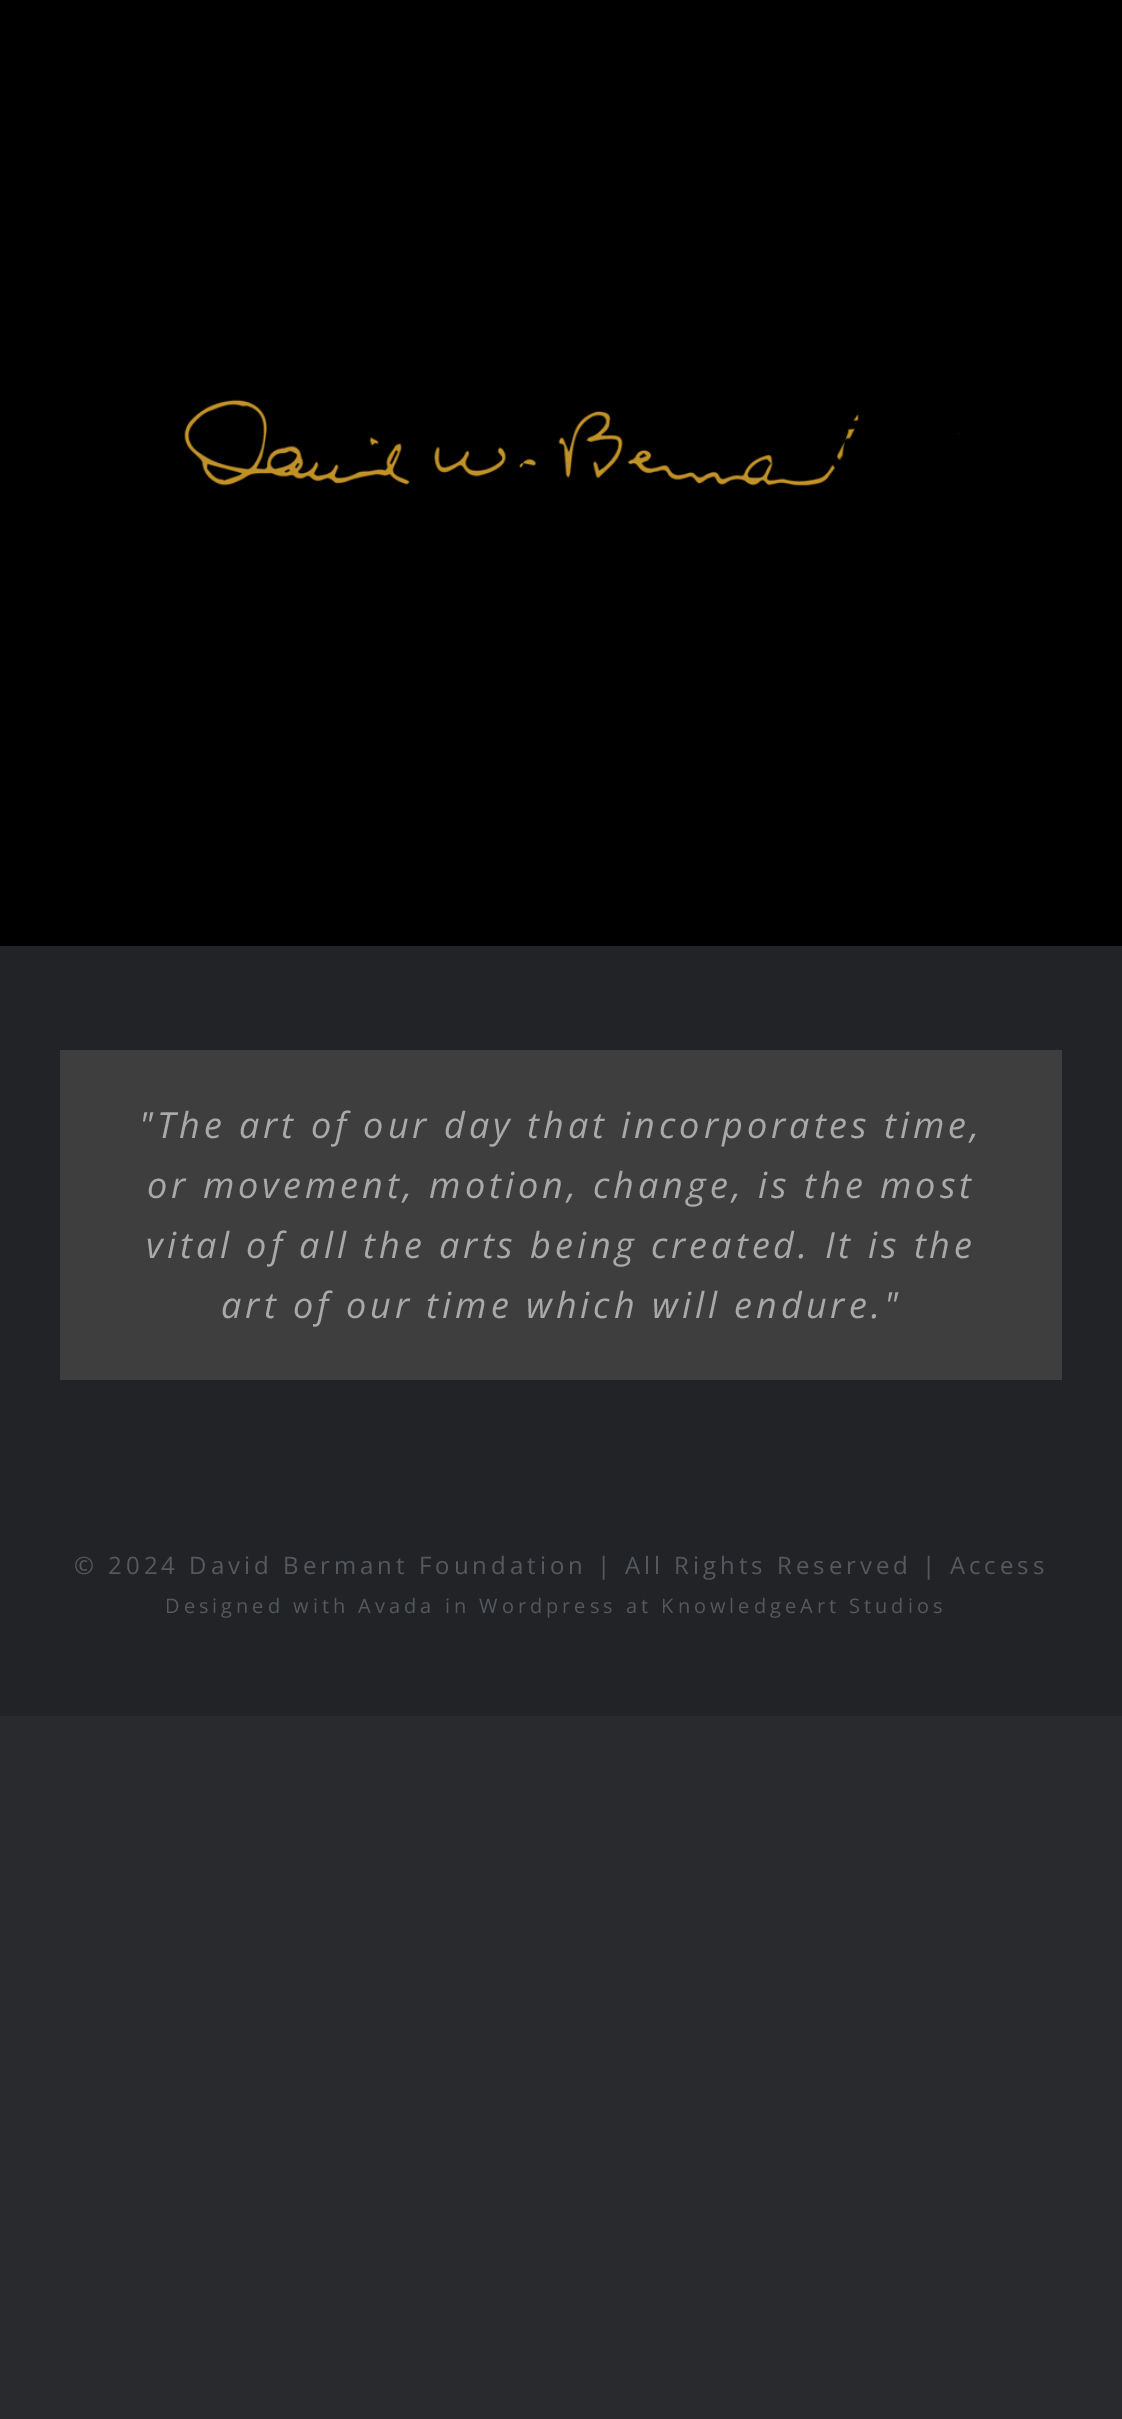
%!PS
<< /PageSize [1122 2419] >> setpagedevice
/picture { 5 dict begin { /h /w /y /x /name } { exch def } forall
  gsave x y translate w h scale
  w h 8 [w 0 0 h 0 0] name (r) file false 3 colorimage grestore end } def
0 2419 translate 1 -1 scale
4 setmiterlimit
0.157 0.165 0.176 setrgbcolor
0 0 1122 2419 rectfill
0 setgray
0 0 1122 946 rectfill
(img1.rgb) 184 399 777 88 picture
0.129 0.137 0.149 setrgbcolor
0 946 1122 770 rectfill
0.243 setgray
60 1050 1002 330 rectfill
/OpenSans-Italic [36 0 0 -36 0 0] selectfont
0.667 0.663 0.663 setrgbcolor
139 1138 moveto 4 0 ("The art of our day that incorporates time,) ashow
147 1198 moveto 4 0 (or movement, motion, change, is the most) ashow
146 1258 moveto 4 0 (vital of all the arts being created. It is the) ashow
221 1318 moveto 4 0 (art of our time which will endure.") ashow
/OpenSans-Regular [24 0 0 -24 0 0] selectfont
0.333 0.345 0.361 setrgbcolor
74 1574 moveto 4 0 (© 2024 David Bermant Foundation | All Rights Reserved | Access) ashow
/OpenSans-Regular [20 0 0 -20 0 0] selectfont
165 1613 moveto 4 0 (Designed with Avada in Wordpress at KnowledgeArt Studios) ashow
showpage
